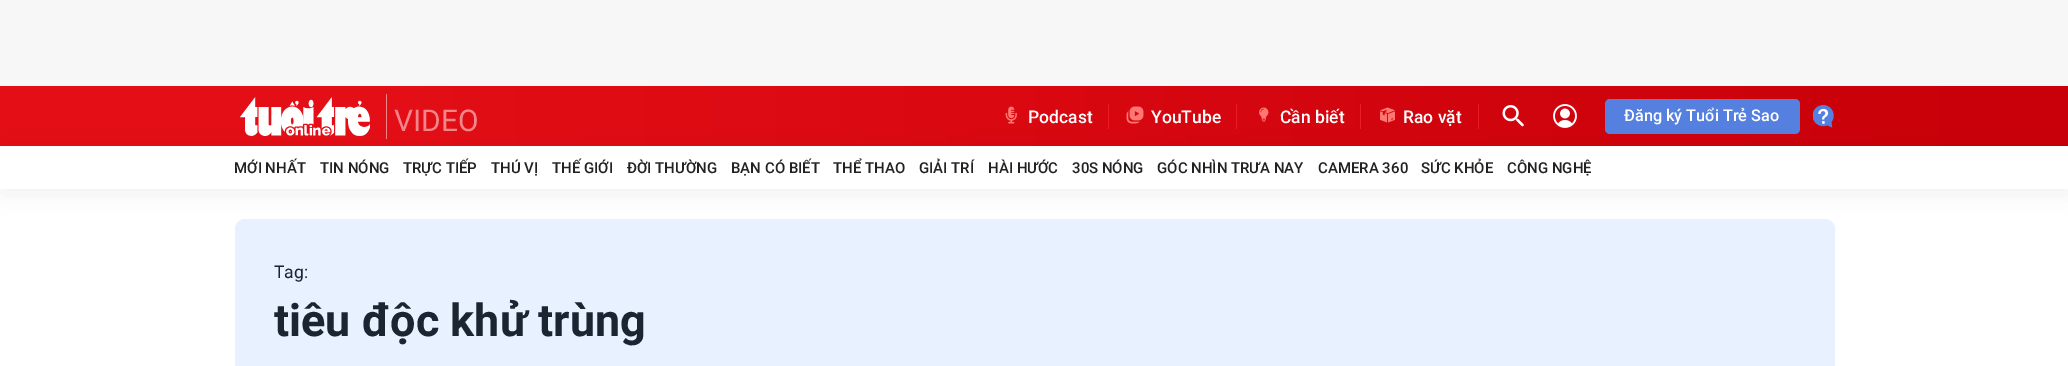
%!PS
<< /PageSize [2068 366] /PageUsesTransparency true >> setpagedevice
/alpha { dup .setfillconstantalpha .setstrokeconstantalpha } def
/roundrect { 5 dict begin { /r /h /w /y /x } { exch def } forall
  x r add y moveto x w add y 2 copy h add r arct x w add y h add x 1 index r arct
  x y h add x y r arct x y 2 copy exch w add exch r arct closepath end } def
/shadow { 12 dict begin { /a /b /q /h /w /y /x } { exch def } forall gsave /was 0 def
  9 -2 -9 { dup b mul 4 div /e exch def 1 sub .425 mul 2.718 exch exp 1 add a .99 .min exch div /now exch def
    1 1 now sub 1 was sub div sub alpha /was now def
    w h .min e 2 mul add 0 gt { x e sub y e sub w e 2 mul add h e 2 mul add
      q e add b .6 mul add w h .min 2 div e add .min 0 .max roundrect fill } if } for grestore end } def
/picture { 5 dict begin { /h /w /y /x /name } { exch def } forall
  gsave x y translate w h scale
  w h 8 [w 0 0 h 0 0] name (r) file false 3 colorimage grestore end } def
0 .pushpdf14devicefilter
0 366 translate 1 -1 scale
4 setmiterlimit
1 setgray
0 0 2068 366 rectfill
0.969 setgray
0 0 2068 86 rectfill
gsave newpath 0 86 moveto 2068 86 lineto 2068 146 lineto 0 146 lineto closepath clip newpath
<< /ShadingType 2 /ColorSpace /DeviceRGB /Coords [-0.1 114 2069 119] /Extend [true true] /Function << /FunctionType 3 /Domain [0 1] /Functions [<< /FunctionType 2 /Domain [0 1] /C0 [0.89 0.055 0.086] /C1 [0.89 0.055 0.086] /N 1 >> << /FunctionType 2 /Domain [0 1] /C0 [0.89 0.055 0.086] /C1 [0.788 0 0.035] /N 1 >> << /FunctionType 2 /Domain [0 1] /C0 [0.788 0 0.035] /C1 [0.788 0 0.035] /N 1 >>] /Bounds [0.19 0.97] /Encode [0 1 0 1 0 1] >> >> shfill grestore
0 setgray
0 151 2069 43 0 12.5 0.05 shadow
0.945 0.525 0.541 setrgbcolor
386 94 1 45 rectfill
(img1.rgb) 240 97 130 39 picture
/Roboto-Regular [30 0 0 -30 0 0] selectfont
394 131 moveto (VIDEO) show
0.929 0.11 0.141 setrgbcolor
1108 104 1 25 rectfill
(img2.rgb) 1005 106 12 18 picture
/Roboto-Medium [17.5 0 0 -17.5 0 0] selectfont
1 setgray
1028 123 moveto (Podcast) show
0.929 0.11 0.141 setrgbcolor
1236 104 1 25 rectfill
(img3.rgb) 1126 106 18 18 picture
1 setgray
1151 123 moveto (YouTube) show
0.929 0.11 0.141 setrgbcolor
1360 104 1 25 rectfill
(img4.rgb) 1259 107 10 15 picture
1 setgray
1280 123 moveto (Cần biết) show
0.929 0.11 0.141 setrgbcolor
1478 104 1 25 rectfill
(img5.rgb) 1380 107 15 16 picture
1 setgray
1403 123 moveto (Rao vặt) show
(img6.rgb) 1502 105 22 22 picture
(img7.rgb) 1553 104 24 24 picture
0.333 0.502 0.875 setrgbcolor
1605 99 195 35 5 roundrect fill
/Roboto-Medium [16.25 0 0 -16.25 0 0] selectfont
1 setgray
1624 121 moveto (Đăng ký Tuổi Trẻ Sao) show
(img8.rgb) 1813 105 21 23 picture
0 146 2068 43 rectfill
/Roboto-Medium [15 0 0 -15 0 0] selectfont
0.133 setgray
234 173 moveto (MỚI NHẤT) show
320 173 moveto (TIN NÓNG) show
403 173 moveto (TRỰC TIẾP) show
491 173 moveto (THÚ VỊ) show
552 173 moveto (THẾ GIỚI) show
627 173 moveto (ĐỜI THƯỜNG) show
731 173 moveto (BẠN CÓ BIẾT) show
833 173 moveto (THỂ THAO) show
919 173 moveto (GIẢI TRÍ) show
988 173 moveto (HÀI HƯỚC) show
1072 173 moveto (30S NÓNG) show
1157 173 moveto (GÓC NHÌN TRƯA NAY) show
1318 173 moveto (CAMERA 360) show
1421 173 moveto (SỨC KHỎE) show
1507 173 moveto (CÔNG NGHỆ) show
0.906 0.945 1 setrgbcolor
235 219 1600 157 10 roundrect fill
/Roboto-Regular [17.5 0 0 -17.5 0 0] selectfont
0.106 0.141 0.192 setrgbcolor
274 278 moveto (Tag:) show
/Roboto-Bold [45 0 0 -45 0 0] selectfont
274 336 moveto (tiêu độc khử trùng) show
.poppdf14devicefilter showpage
